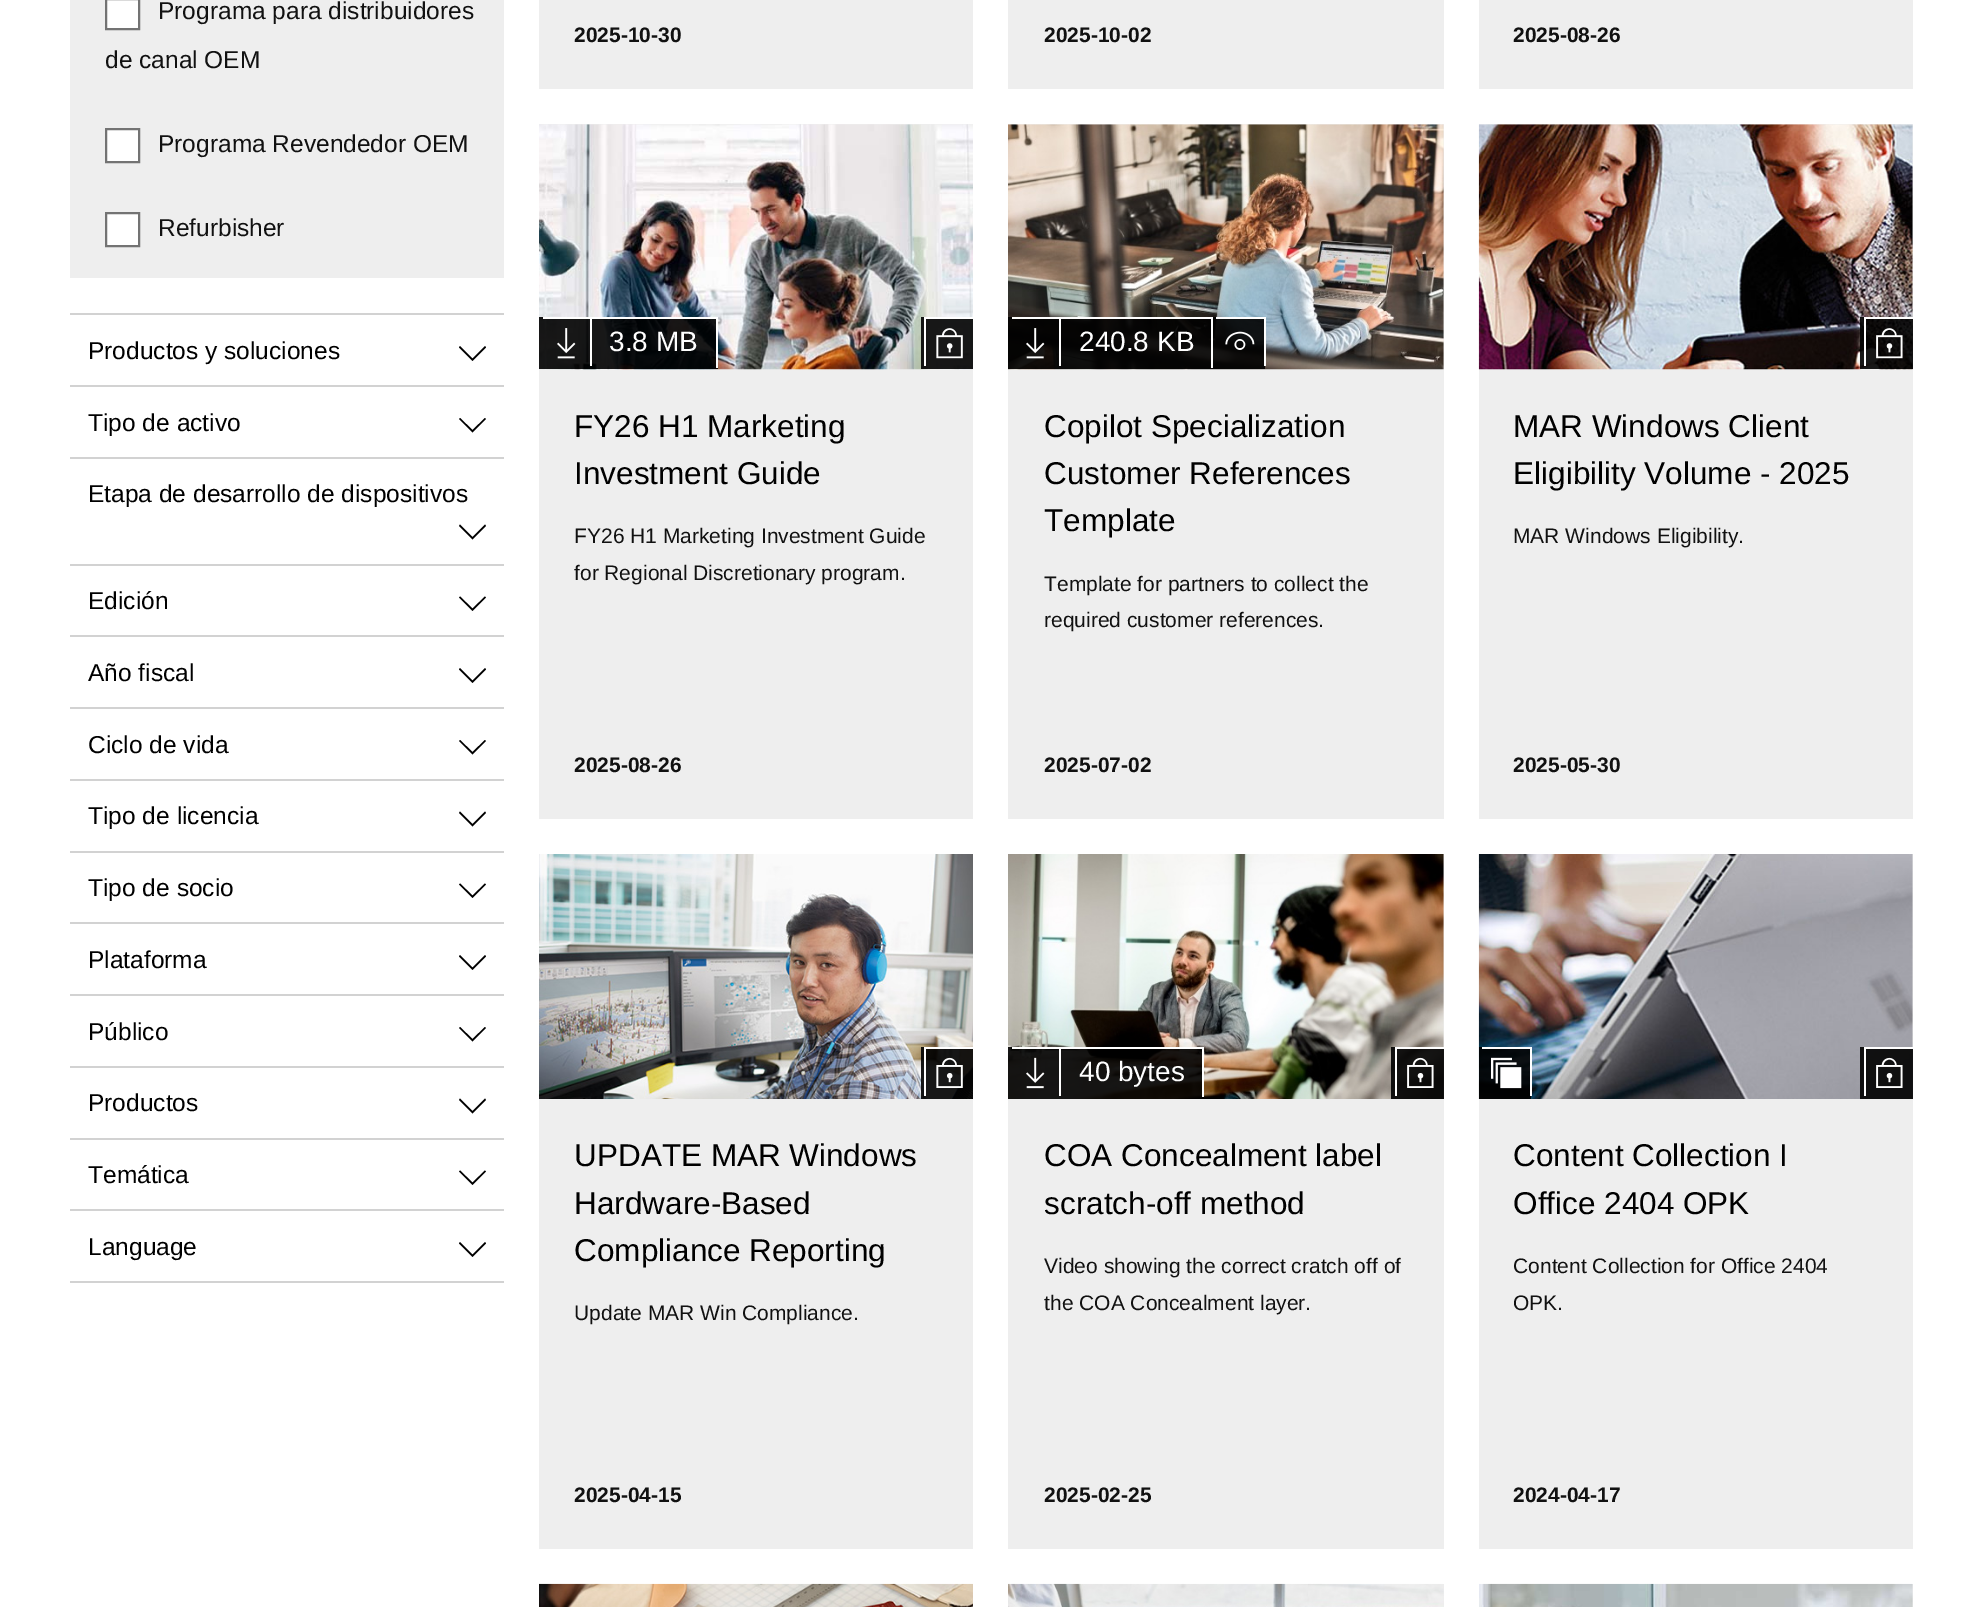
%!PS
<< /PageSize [1982 1607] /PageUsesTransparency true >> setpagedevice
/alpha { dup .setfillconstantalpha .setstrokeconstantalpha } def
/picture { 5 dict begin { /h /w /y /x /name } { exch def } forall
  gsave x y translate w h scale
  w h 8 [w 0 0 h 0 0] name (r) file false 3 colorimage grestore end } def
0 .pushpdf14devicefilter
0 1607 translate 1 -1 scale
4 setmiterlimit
1 setgray
0 0 1982 1607 rectfill
0.933 setgray
70 0 434 278 rectfill
1 setgray
newpath 106 -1 moveto 139 -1 lineto 139 29 lineto 106 29 lineto closepath gsave fill grestore
0.451 setgray
2 setlinewidth
stroke
/LiberationSans-Regular [24.5 0 0 -24.5 0 0] selectfont
0.067 setgray
158 19 moveto (Programa para distribuidores) show
105 68 moveto (de canal OEM) show
1 setgray
newpath 106 129 moveto 139 129 lineto 139 162 lineto 106 162 lineto closepath gsave fill grestore
0.451 setgray
stroke
0.067 setgray
158 152 moveto (Programa Revendedor OEM) show
1 setgray
newpath 106 213 moveto 139 213 lineto 139 246 lineto 106 246 lineto closepath gsave fill grestore
0.451 setgray
stroke
0.067 setgray
158 236 moveto (Refurbisher) show
0.824 setgray
70 313 434 2 rectfill
0 setgray
88 359 moveto (Productos y soluciones) show
newpath 485 346 moveto 486 347.5 lineto 472.5 361 lineto 459 347.5 lineto 460 346 lineto 472.5 358.5 lineto closepath fill
0.824 setgray
70 385 434 2 rectfill
0 setgray
88 431 moveto (Tipo de activo) show
newpath 485 418 moveto 486 419 lineto 472.5 432.5 lineto 459 419 lineto 460 418 lineto 472.5 430 lineto closepath fill
0.824 setgray
70 457 434 2 rectfill
0 setgray
88 502 moveto (Etapa de desarrollo de dispositivos) show
newpath 485 524.5 moveto 486 526 lineto 472.5 539.5 lineto 459 526 lineto 460 524.5 lineto 472.5 537 lineto closepath fill
0.824 setgray
70 564 434 2 rectfill
0 setgray
88 609 moveto (Edición) show
newpath 485 596.5 moveto 486 597.5 lineto 472.5 611 lineto 459 597.5 lineto 460 596.5 lineto 472.5 608.5 lineto closepath fill
0.824 setgray
70 635 434 2 rectfill
0 setgray
88 681 moveto (Año fiscal) show
newpath 485 668 moveto 486 669.5 lineto 472.5 683 lineto 459 669.5 lineto 460 668 lineto 472.5 680.5 lineto closepath fill
0.824 setgray
70 707 434 2 rectfill
0 setgray
88 753 moveto (Ciclo de vida) show
newpath 485 740 moveto 486 741 lineto 472.5 754.5 lineto 459 741 lineto 460 740 lineto 472.5 752 lineto closepath fill
0.824 setgray
70 779 434 2 rectfill
0 setgray
88 824 moveto (Tipo de licencia) show
newpath 485 811.5 moveto 486 813 lineto 472.5 826.5 lineto 459 813 lineto 460 811.5 lineto 472.5 824 lineto closepath fill
0.824 setgray
70 851 434 2 rectfill
0 setgray
88 896 moveto (Tipo de socio) show
newpath 485 883.5 moveto 486 884.5 lineto 472.5 898 lineto 459 884.5 lineto 460 883.5 lineto 472.5 895.5 lineto closepath fill
0.824 setgray
70 922 434 2 rectfill
0 setgray
88 968 moveto (Plataforma) show
newpath 485 955 moveto 486 956.5 lineto 472.5 970 lineto 459 956.5 lineto 460 955 lineto 472.5 967.5 lineto closepath fill
0.824 setgray
70 994 434 2 rectfill
0 setgray
88 1040 moveto (Público) show
newpath 485 1027 moveto 486 1028 lineto 472.5 1041.5 lineto 459 1028 lineto 460 1027 lineto 472.5 1039 lineto closepath fill
0.824 setgray
70 1066 434 2 rectfill
0 setgray
88 1111 moveto (Productos) show
newpath 485 1098.5 moveto 486 1100 lineto 472.5 1113.5 lineto 459 1100 lineto 460 1098.5 lineto 472.5 1111 lineto closepath fill
0.824 setgray
70 1138 434 2 rectfill
0 setgray
88 1183 moveto (Temática) show
newpath 485 1170.5 moveto 486 1171.5 lineto 472.5 1185 lineto 459 1171.5 lineto 460 1170.5 lineto 472.5 1182.5 lineto closepath fill
0.824 setgray
70 1209 434 2 rectfill
70 1281 434 2 rectfill
0 setgray
88 1255 moveto (Language) show
newpath 485 1242 moveto 486 1243.5 lineto 472.5 1257 lineto 459 1243.5 lineto 460 1242 lineto 472.5 1254.5 lineto closepath fill
0.933 setgray
539 0 434 89 rectfill
/LiberationSans-Bold [21 0 0 -21 0 0] selectfont
0.067 setgray
574 42 moveto (2025-10-30) show
0.933 setgray
1008 0 436 89 rectfill
0.067 setgray
1044 42 moveto (2025-10-02) show
0.933 setgray
1479 0 434 89 rectfill
0.067 setgray
1513 42 moveto (2025-08-26) show
0.933 setgray
539 124 434 695 rectfill
(img1.rgb) 539 124 434 246 picture
0.9 alpha
0 setgray
539 317 179 52 rectfill
1 alpha
1 setgray
543 317 175 2 rectfill
590 317 2 49 rectfill
(img2.rgb) 557 328 19 31 picture
716 317 2 51 rectfill
/LiberationSans-Regular [28 0 0 -28 0 0] selectfont
609 351 moveto (3.8 MB) show
0.9 alpha
0 setgray
921 317 52 52 rectfill
1 alpha
1 setgray
924 317 49 2 rectfill
924 317 2 49 rectfill
(img3.rgb) 936 328 27 31 picture
/LiberationSans-Regular [31.5 0 0 -31.5 0 0] selectfont
0 setgray
574 437 moveto (FY26 H1 Marketing) show
574 484 moveto (Investment Guide) show
/LiberationSans-Regular [21 0 0 -21 0 0] selectfont
0.067 setgray
574 543 moveto (FY26 H1 Marketing Investment Guide) show
574 580 moveto (for Regional Discretionary program.) show
/LiberationSans-Bold [21 0 0 -21 0 0] selectfont
574 772 moveto (2025-08-26) show
0.933 setgray
1008 124 436 695 rectfill
(img4.rgb) 1008 124 436 246 picture
0.9 alpha
0 setgray
1008 317 257 52 rectfill
1 alpha
1 setgray
1012 317 201 2 rectfill
1059 317 2 49 rectfill
(img5.rgb) 1026 328 19 31 picture
1211 317 2 51 rectfill
/LiberationSans-Regular [28 0 0 -28 0 0] selectfont
1079 351 moveto (240.8 KB) show
1216 317 49 2 rectfill
1264 317 2 49 rectfill
(img6.rgb) 1225 331 30 19 picture
/LiberationSans-Regular [31.5 0 0 -31.5 0 0] selectfont
0 setgray
1044 437 moveto (Copilot Specialization) show
1044 484 moveto (Customer References) show
1044 531 moveto (Template) show
/LiberationSans-Regular [21 0 0 -21 0 0] selectfont
0.067 setgray
1044 591 moveto (Template for partners to collect the) show
1044 627 moveto (required customer references.) show
/LiberationSans-Bold [21 0 0 -21 0 0] selectfont
1044 772 moveto (2025-07-02) show
0.933 setgray
1479 124 434 695 rectfill
(img7.rgb) 1478 124 435 246 picture
0.9 alpha
0 setgray
1860 317 53 52 rectfill
1 alpha
1 setgray
1864 317 49 2 rectfill
1864 317 2 49 rectfill
(img8.rgb) 1876 328 27 31 picture
/LiberationSans-Regular [31.5 0 0 -31.5 0 0] selectfont
0 setgray
1513 437 moveto (MAR Windows Client) show
1513 484 moveto (Eligibility Volume - 2025) show
/LiberationSans-Regular [21 0 0 -21 0 0] selectfont
0.067 setgray
1513 543 moveto (MAR Windows Eligibility.) show
/LiberationSans-Bold [21 0 0 -21 0 0] selectfont
1513 772 moveto (2025-05-30) show
0.933 setgray
539 1099 434 450 rectfill
(img9.rgb) 539 854 434 245 picture
0.9 alpha
0 setgray
921 1047 52 52 rectfill
1 alpha
1 setgray
924 1047 49 2 rectfill
924 1047 2 49 rectfill
(img10.rgb) 936 1057 27 31 picture
/LiberationSans-Regular [31.5 0 0 -31.5 0 0] selectfont
0 setgray
574 1166 moveto (UPDATE MAR Windows) show
574 1214 moveto (Hardware-Based) show
574 1261 moveto (Compliance Reporting) show
/LiberationSans-Regular [21 0 0 -21 0 0] selectfont
0.067 setgray
574 1320 moveto (Update MAR Win Compliance.) show
/LiberationSans-Bold [21 0 0 -21 0 0] selectfont
574 1502 moveto (2025-04-15) show
0.933 setgray
1008 854 436 695 rectfill
(img11.rgb) 1008 854 436 245 picture
0.9 alpha
0 setgray
1008 1047 196 52 rectfill
1 alpha
1 setgray
1012 1047 192 2 rectfill
1059 1047 2 49 rectfill
(img12.rgb) 1026 1057 19 32 picture
1202 1047 2 50 rectfill
/LiberationSans-Regular [28 0 0 -28 0 0] selectfont
1079 1081 moveto (40 bytes) show
0.9 alpha
0 setgray
1391 1047 53 52 rectfill
1 alpha
1 setgray
1395 1047 49 2 rectfill
1395 1047 2 49 rectfill
(img13.rgb) 1407 1057 27 31 picture
/LiberationSans-Regular [31.5 0 0 -31.5 0 0] selectfont
0 setgray
1044 1166 moveto (COA Concealment label) show
1044 1214 moveto (scratch-off method) show
/LiberationSans-Regular [21 0 0 -21 0 0] selectfont
0.067 setgray
1044 1273 moveto (Video showing the correct cratch off of) show
1044 1310 moveto (the COA Concealment layer.) show
/LiberationSans-Bold [21 0 0 -21 0 0] selectfont
1044 1502 moveto (2025-02-25) show
0.933 setgray
1479 854 434 695 rectfill
(img14.rgb) 1478 854 435 245 picture
0.9 alpha
0 setgray
1479 1047 52 52 rectfill
1 alpha
1 setgray
1482 1047 49 2 rectfill
1530 1047 2 49 rectfill
(img15.rgb) 1491 1057 31 32 picture
0.9 alpha
0 setgray
1860 1047 53 52 rectfill
1 alpha
1 setgray
1864 1047 49 2 rectfill
1864 1047 2 49 rectfill
(img16.rgb) 1876 1057 27 31 picture
/LiberationSans-Regular [31.5 0 0 -31.5 0 0] selectfont
0 setgray
1513 1166 moveto (Content Collection I) show
1513 1214 moveto (Office 2404 OPK) show
/LiberationSans-Regular [21 0 0 -21 0 0] selectfont
0.067 setgray
1513 1273 moveto (Content Collection for Office 2404) show
1513 1310 moveto (OPK.) show
/LiberationSans-Bold [21 0 0 -21 0 0] selectfont
1513 1502 moveto (2024-04-17) show
(img17.rgb) 539 1583 434 24 picture
0.933 setgray
1443 1584 1 23 rectfill
(img18.rgb) 1008 1583 436 24 picture
1912 1584 1 23 rectfill
(img19.rgb) 1479 1583 434 24 picture
.poppdf14devicefilter showpage
